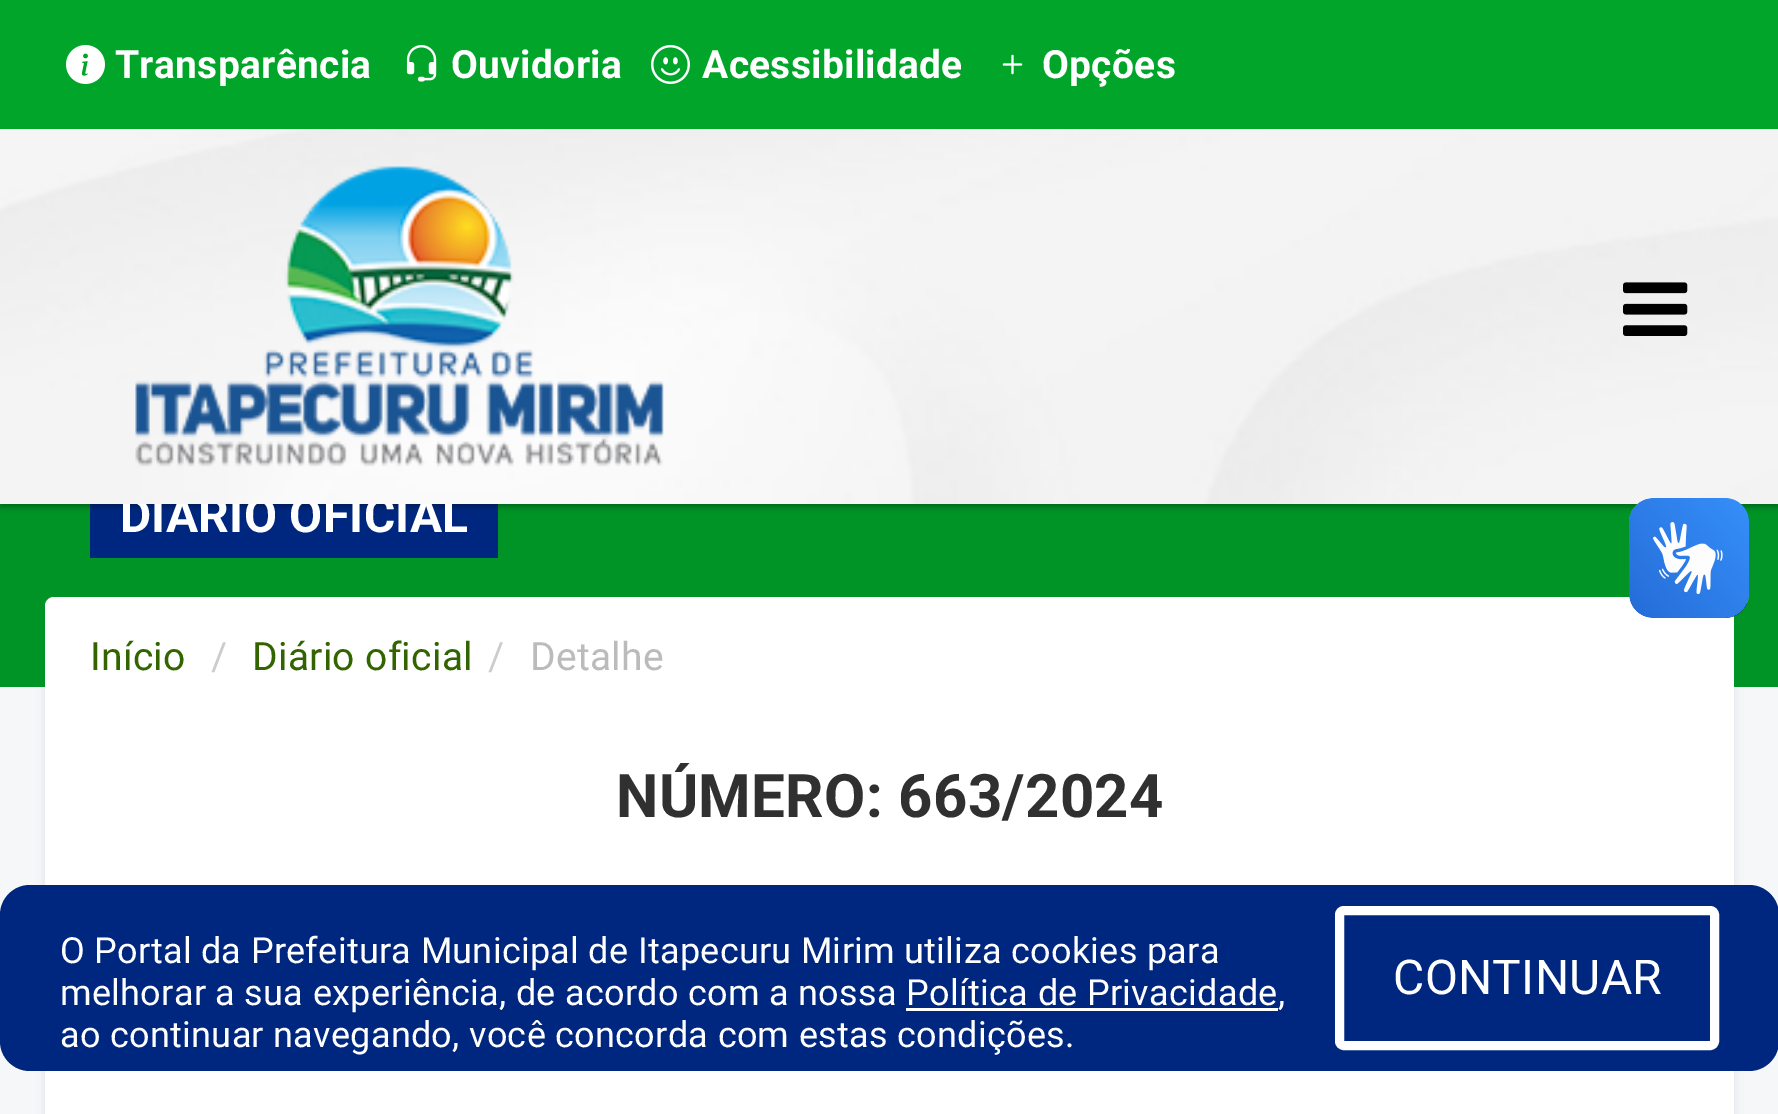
%!PS
<< /PageSize [1778 1114] /PageUsesTransparency true >> setpagedevice
/alpha { dup .setfillconstantalpha .setstrokeconstantalpha } def
/roundrect { 5 dict begin { /r /h /w /y /x } { exch def } forall
  x r add y moveto x w add y 2 copy h add r arct x w add y h add x 1 index r arct
  x y h add x y r arct x y 2 copy exch w add exch r arct closepath end } def
/shadow { 12 dict begin { /a /b /q /h /w /y /x } { exch def } forall gsave /was 0 def
  9 -2 -9 { dup b mul 4 div /e exch def 1 sub .425 mul 2.718 exch exp 1 add a .99 .min exch div /now exch def
    1 1 now sub 1 was sub div sub alpha /was now def
    w h .min e 2 mul add 0 gt { x e sub y e sub w e 2 mul add h e 2 mul add
      q e add b .6 mul add w h .min 2 div e add .min 0 .max roundrect fill } if } for grestore end } def
/picture { 5 dict begin { /h /w /y /x /name } { exch def } forall
  gsave x y translate w h scale
  w h 8 [w 0 0 h 0 0] name (r) file false 3 colorimage grestore end } def
0 .pushpdf14devicefilter
0 1114 translate 1 -1 scale
4 setmiterlimit
0.965 0.969 0.973 setrgbcolor
0 0 1778 1114 rectfill
0.012 0 0.278 setrgbcolor
45 600 1689 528 0 4.5 0.09 shadow
0 0.576 0.145 setrgbcolor
0 504 1778 183 rectfill
0 0.153 0.498 setrgbcolor
90 504 408 54 rectfill
0 setgray
0 3 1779 504 0 3 0.3 shadow
/Roboto-Bold [48 0 0 -48 0 0] selectfont
1 setgray
120 532 moveto 0.3 0 (DIÁRIO OFICIAL) ashow
(img1.rgb) 0 129 1778 375 picture
0 0.647 0.161 setrgbcolor
0 0 1778 129 rectfill
(img2.rgb) 66 45 39 39 picture
/Roboto-Bold [39 0 0 -39 0 0] selectfont
1 setgray
115 78 moveto 0.3 0 (Transparência) ashow
(img3.rgb) 406 45 31 37 picture
451 78 moveto 0.3 0 (Ouvidoria) ashow
(img4.rgb) 651 45 39 39 picture
702 78 moveto 0.3 0 (Acessibilidade) ashow
(img5.rgb) 1002 54 21 21 picture
1042 78 moveto 0.3 0 (Opções) ashow
(img6.rgb) 135 166 529 301 picture
(img7.rgb) 1623 282 65 54 picture
45 708 1689 406 rectfill
45 597 1689 120 9 roundrect fill
(img8.rgb) 1629 498 120 120 picture
(img9.rgb) 1629 498 120 120 picture
/Roboto-Regular [39 0 0 -39 0 0] selectfont
0.196 0.392 0 setrgbcolor
90 670 moveto 0.3 0 (Início) ashow
0.8 setgray
211 670 moveto 0.3 0 (/) ashow
0.196 0.392 0 setrgbcolor
252 670 moveto 0.3 0 (Diário oficial) ashow
0.8 setgray
488 670 moveto 0.3 0 (/) ashow
0.733 setgray
530 670 moveto 0.3 0 (Detalhe) ashow
/Roboto-Bold [60 0 0 -60 0 0] selectfont
0.188 setgray
616 817 moveto 0.3 0 (NÚMERO: 663/2024) ashow
0 0.153 0.498 setrgbcolor
0 885 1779 186 30 roundrect fill
/Roboto-Regular [36 0 0 -36 0 0] selectfont
1 setgray
60 963 moveto 0.3 0 (O Portal da Prefeitura Municipal de Itapecuru Mirim utiliza cookies para) ashow
60 1005 moveto 0.3 0 (melhorar a sua experiência, de acordo com a nossa Política de Privacidade,) ashow
906 1008 372 3 rectfill
60 1047 moveto 0.3 0 (ao continuar navegando, você concorda com estas condições.) ashow
9 setlinewidth
1339.5 910.5 375 135 4.5 roundrect stroke
/Roboto-Regular [48 0 0 -48 0 0] selectfont
1393 994 moveto 0.3 0 (CONTINUAR) ashow
.poppdf14devicefilter showpage
